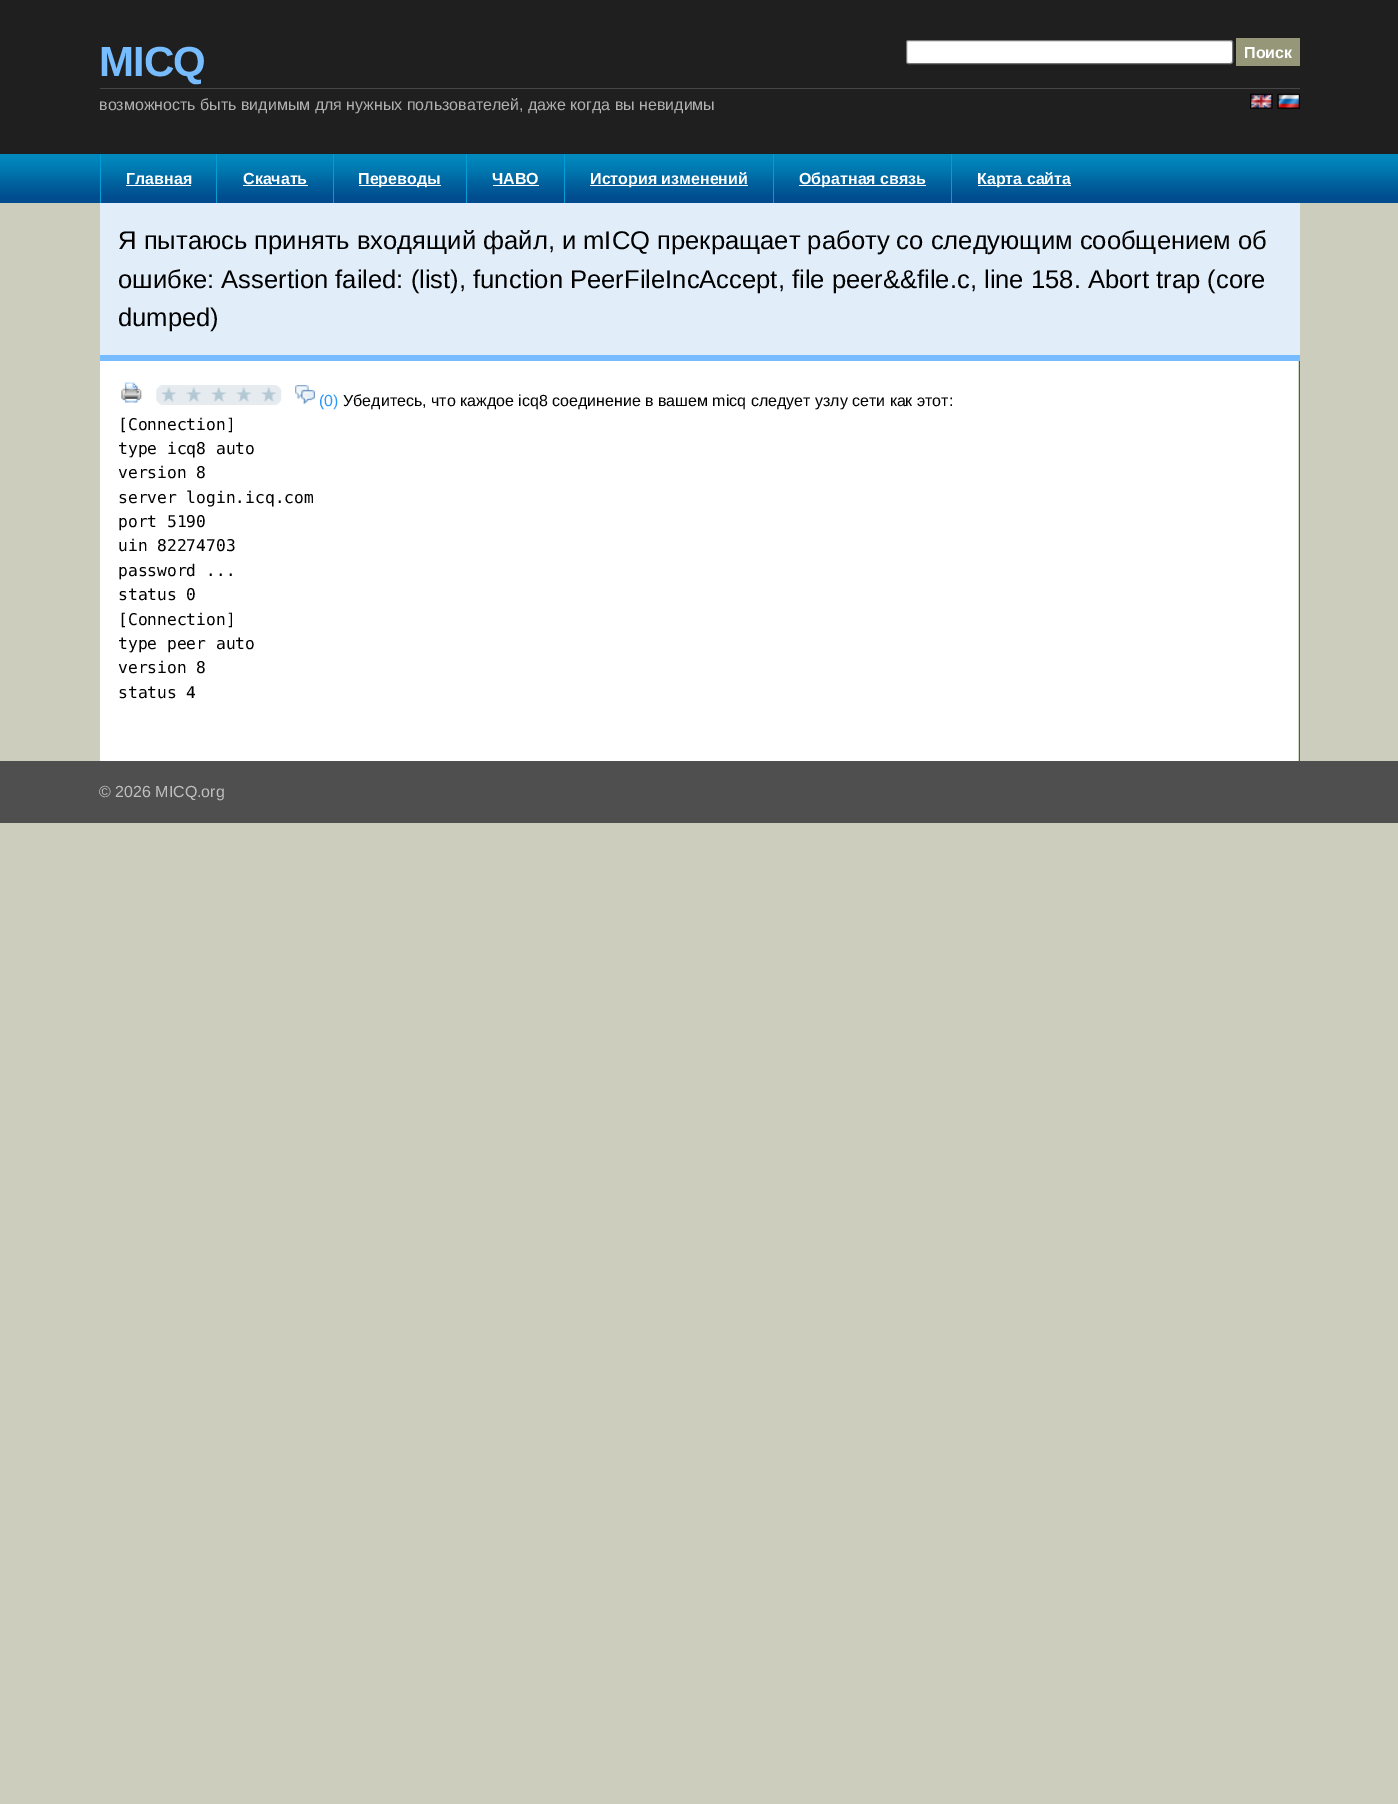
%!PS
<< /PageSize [1398 1804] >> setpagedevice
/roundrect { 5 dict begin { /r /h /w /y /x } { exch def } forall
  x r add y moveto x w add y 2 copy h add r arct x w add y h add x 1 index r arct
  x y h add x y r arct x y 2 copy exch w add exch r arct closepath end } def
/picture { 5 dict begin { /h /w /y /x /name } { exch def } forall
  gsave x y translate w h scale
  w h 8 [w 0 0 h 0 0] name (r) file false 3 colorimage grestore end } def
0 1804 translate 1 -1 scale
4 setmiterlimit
0.804 0.804 0.745 setrgbcolor
0 0 1398 1804 rectfill
0.122 setgray
0 0 1398 154 rectfill
0.275 setgray
100 88 1200 1 rectfill
/LiberationSans-Bold [42 0 0 -42 0 0] selectfont
0.467 0.737 1 setrgbcolor
99 76 moveto -1 0 (MICQ) ashow
1 setgray
906.5 40.5 326 23 2 roundrect gsave fill grestore
0.463 setgray
stroke
0.588 0.588 0.471 setrgbcolor
1236 38 64 28 rectfill
/LiberationSans-Bold [16 0 0 -16 0 0] selectfont
1 setgray
1244 58 moveto (Поиск) show
(img1.rgb) 1250 93 23 16 picture
(img2.rgb) 1277 93 23 16 picture
/LiberationSans-Regular [16 0 0 -16 0 0] selectfont
0.69 setgray
99 110 moveto (возможность быть видимым для нужных пользователей, даже когда вы невидимы) show
0 0.298 0.557 setrgbcolor
0 196 1398 7 rectfill
(img3.rgb) 0 154 1398 42 picture
0 0.616 0.843 setrgbcolor
100 154 1 49 rectfill
/LiberationSans-Bold [16 0 0 -16 0 0] selectfont
1 setgray
126 184 moveto (Главная) show
126 185 65 1 rectfill
0 0.616 0.843 setrgbcolor
216 154 1 49 rectfill
1 setgray
243 184 moveto (Скачать) show
243 185 65 1 rectfill
0 0.616 0.843 setrgbcolor
333 154 1 49 rectfill
1 setgray
359 185 82 1 rectfill
358 184 moveto (Переводы) show
0 0.616 0.843 setrgbcolor
466 154 1 49 rectfill
1 setgray
492 184 moveto (ЧАВО) show
493 185 46 1 rectfill
0 0.616 0.843 setrgbcolor
564 154 1 49 rectfill
1 setgray
590 185 158 1 rectfill
590 184 moveto (История изменений) show
0 0.616 0.843 setrgbcolor
773 154 1 49 rectfill
1 setgray
799 185 127 1 rectfill
799 184 moveto (Обратная связь) show
0 0.616 0.843 setrgbcolor
951 154 1 49 rectfill
1 setgray
978 185 93 1 rectfill
977 184 moveto (Карта сайта) show
100 361 1199 400 rectfill
0.31 setgray
0 761 1398 62 rectfill
(img4.rgb) 1298 202 2 560 picture
0.882 0.933 0.98 setrgbcolor
100 203 1200 152 rectfill
0.467 0.737 1 setrgbcolor
100 355 1200 6 rectfill
/LiberationSans-Regular [25.6 0 0 -25.6 0 0] selectfont
0 setgray
118 249 moveto (Я пытаюсь принять входящий файл, и mICQ прекращает работу со следующим сообщением об) show
118 288 moveto (ошибке: Assertion failed: \(list\), function PeerFileIncAccept, file peer&&file.c, line 158. Abort trap \(core) show
118 326 moveto (dumped\)) show
(img5.rgb) 121 382 21 21 picture
(img6.rgb) 156 385 126 20 picture
(img7.rgb) 295 385 20 19 picture
/LiberationSans-Regular [16 0 0 -16 0 0] selectfont
0.161 0.596 1 setrgbcolor
319 406 moveto (\(0\)) show
0 setgray
343 406 moveto (Убедитесь, что каждое icq8 соединение в вашем micq следует узлу сети как этот:) show
/DejaVuSansMono-Regular [16.25 0 0 -16.25 0 0] selectfont
118 430 moveto ([Connection]) show
118 454 moveto (type icq8 auto) show
118 478 moveto (version 8) show
118 503 moveto (server login.icq.com) show
118 527 moveto (port 5190) show
118 551 moveto (uin 82274703) show
118 576 moveto (password ...) show
118 600 moveto (status 0) show
118 625 moveto ([Connection]) show
118 649 moveto (type peer auto) show
118 673 moveto (version 8) show
118 698 moveto (status 4) show
/LiberationSans-Regular [16 0 0 -16 0 0] selectfont
0.749 setgray
99 797 moveto (© 2026 MICQ.org) show
showpage
